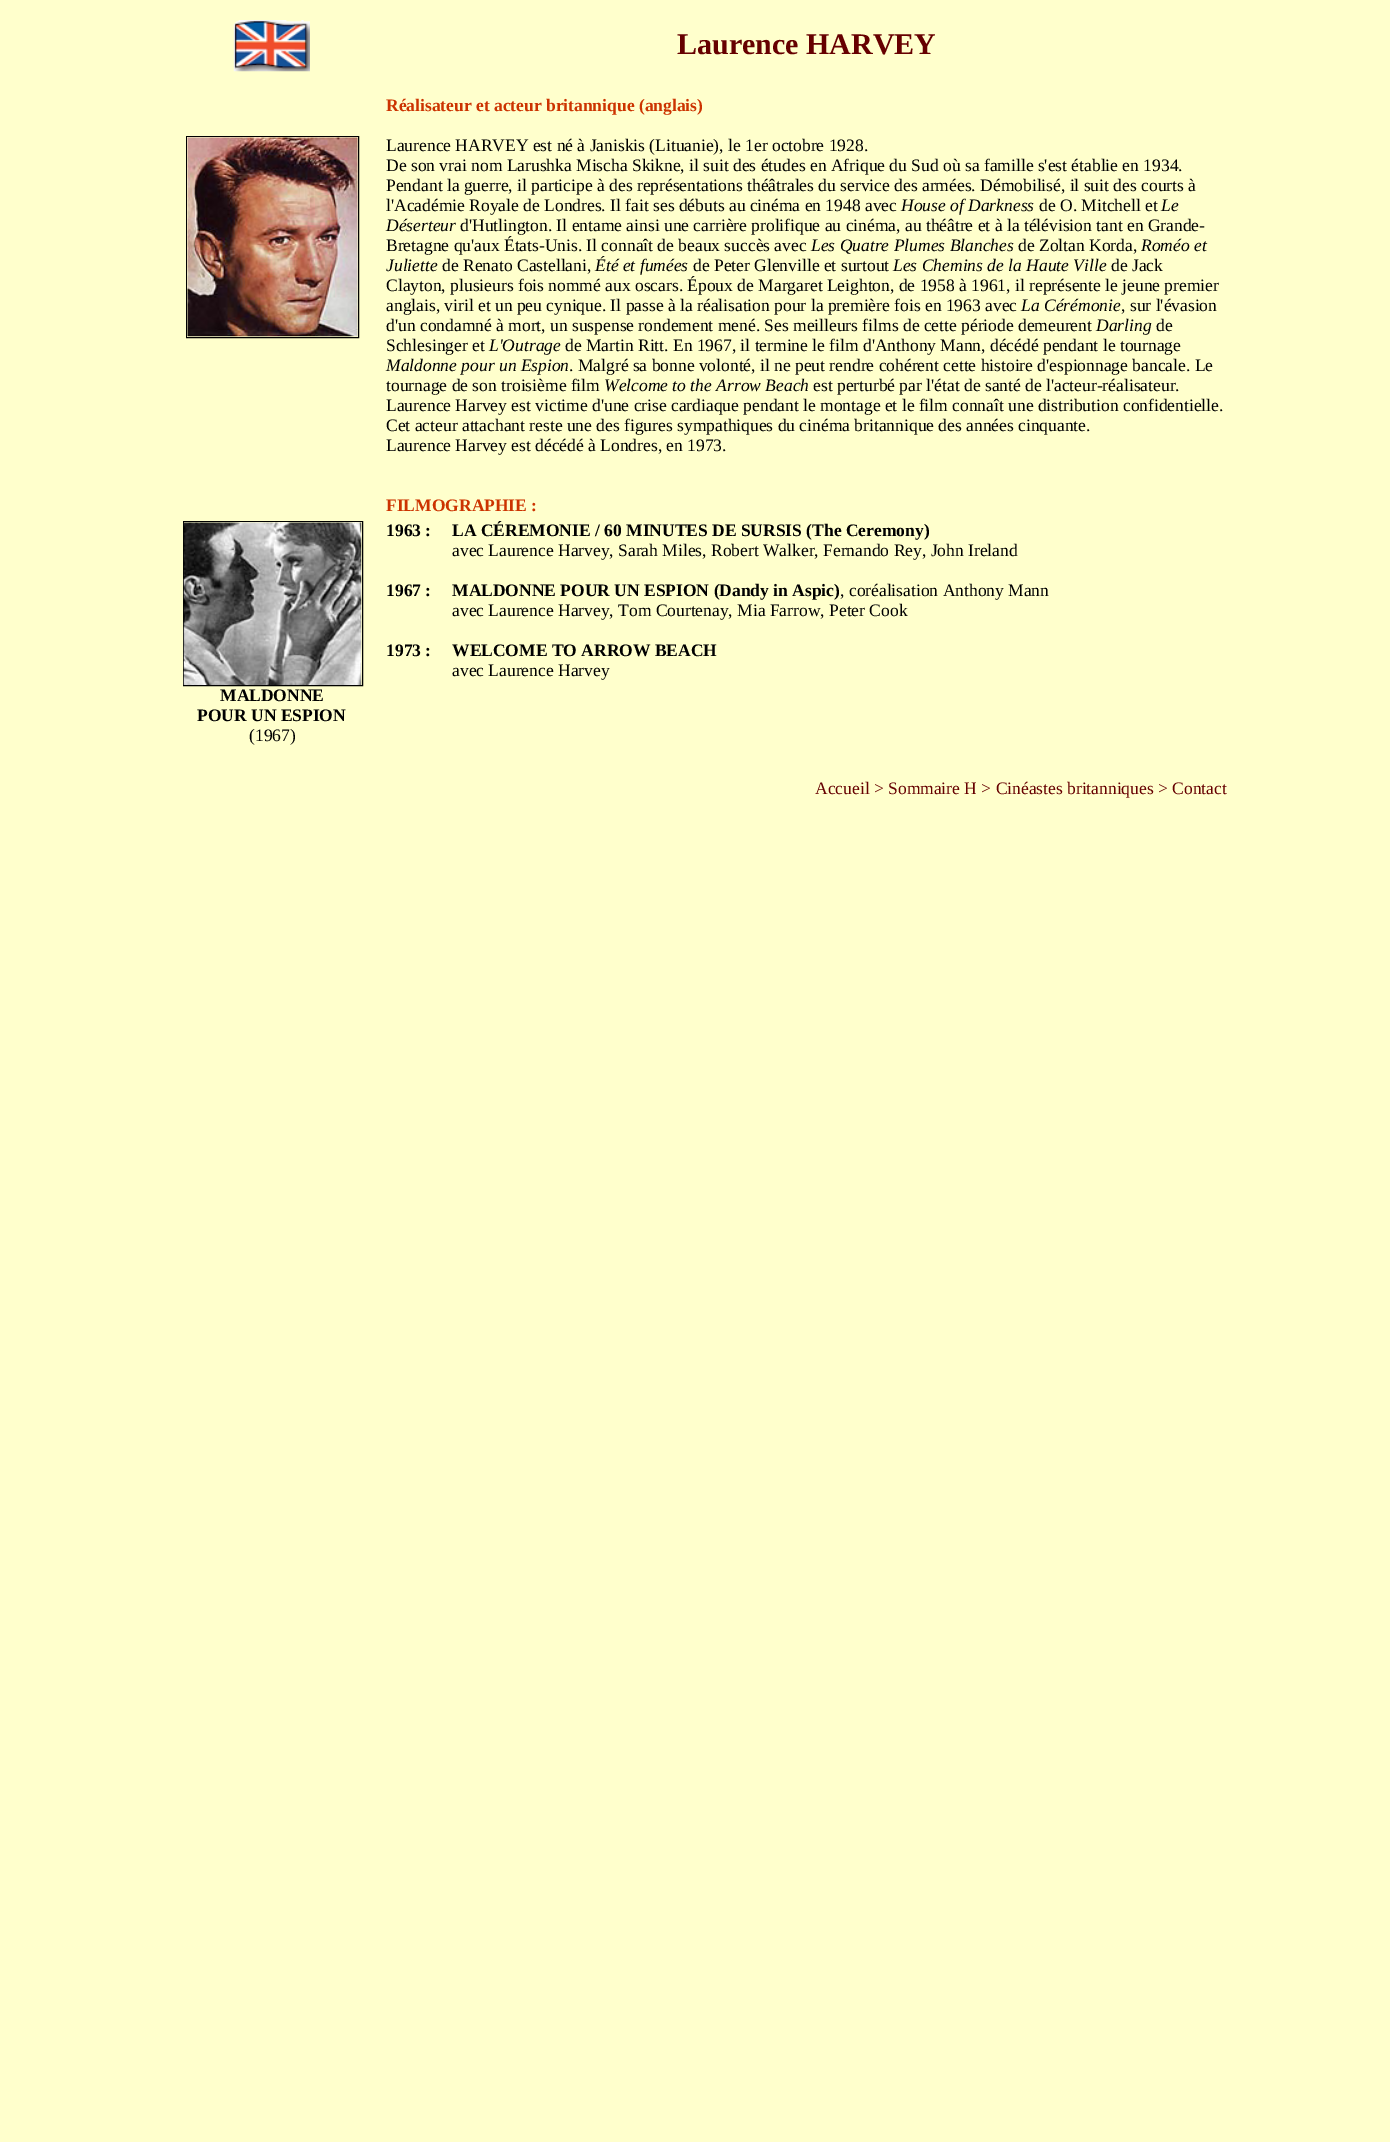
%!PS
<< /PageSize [1390 2142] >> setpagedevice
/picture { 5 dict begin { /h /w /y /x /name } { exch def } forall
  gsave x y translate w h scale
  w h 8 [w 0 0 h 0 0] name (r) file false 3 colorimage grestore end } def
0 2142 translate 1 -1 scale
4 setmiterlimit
1 1 0.8 setrgbcolor
0 0 1390 2142 rectfill
(img1.rgb) 233 20 77 52 picture
/LiberationSerif-Bold [30 0 0 -30 0 0] selectfont
0.4 0 0 setrgbcolor
677 54 moveto (Laurence HARVEY) show
/LiberationSerif-Bold [17.5 0 0 -17.5 0 0] selectfont
0.8 0.2 0 setrgbcolor
386 111 moveto (Réalisateur et acteur britannique \(anglais\)) show
0 setgray
186.5 136.5 172 201 rectstroke
(img2.rgb) 187 137 171 200 picture
/LiberationSerif-Regular [17.5 0 0 -17.5 0 0] selectfont
386 151 moveto (Laurence HARVEY est né à Janiskis \(Lituanie\), le 1er octobre 1928.) show
386 171 moveto (De son vrai nom Larushka Mischa Skikne, il suit des études en Afrique du Sud où sa famille s'est établie en 1934.) show
386 191 moveto (Pendant la guerre, il participe à des représentations théâtrales du service des armées. Démobilisé, il suit des courts à) show
386 211 moveto (l'Académie Royale de Londres. Il fait ses débuts au cinéma en 1948 avec) show
/LiberationSerif-Italic [17.5 0 0 -17.5 0 0] selectfont
901 211 moveto (House of Darkness) show
/LiberationSerif-Regular [17.5 0 0 -17.5 0 0] selectfont
1039 211 moveto (de O. Mitchell et) show
/LiberationSerif-Italic [17.5 0 0 -17.5 0 0] selectfont
1161 211 moveto (Le) show
386 231 moveto (Déserteur) show
/LiberationSerif-Regular [17.5 0 0 -17.5 0 0] selectfont
460 231 moveto (d'Hutlington. Il entame ainsi une carrière prolifique au cinéma, au théâtre et à la télévision tant en Grande-) show
386 251 moveto (Bretagne qu'aux États-Unis. Il connaît de beaux succès avec) show
/LiberationSerif-Italic [17.5 0 0 -17.5 0 0] selectfont
811 251 moveto (Les Quatre Plumes Blanches) show
/LiberationSerif-Regular [17.5 0 0 -17.5 0 0] selectfont
1018 251 moveto (de Zoltan Korda,) show
/LiberationSerif-Italic [17.5 0 0 -17.5 0 0] selectfont
1141 251 moveto (Roméo et) show
386 271 moveto (Juliette) show
/LiberationSerif-Regular [17.5 0 0 -17.5 0 0] selectfont
442 271 moveto (de Renato Castellani,) show
/LiberationSerif-Italic [17.5 0 0 -17.5 0 0] selectfont
595 271 moveto (Été et fumées) show
/LiberationSerif-Regular [17.5 0 0 -17.5 0 0] selectfont
693 271 moveto (de Peter Glenville et surtout) show
/LiberationSerif-Italic [17.5 0 0 -17.5 0 0] selectfont
893 271 moveto (Les Chemins de la Haute Ville) show
/LiberationSerif-Regular [17.5 0 0 -17.5 0 0] selectfont
1111 271 moveto (de Jack) show
386 291 moveto (Clayton, plusieurs fois nommé aux oscars. Époux de Margaret Leighton, de 1958 à 1961, il représente le jeune premier) show
386 311 moveto (anglais, viril et un peu cynique. Il passe à la réalisation pour la première fois en 1963 avec) show
/LiberationSerif-Italic [17.5 0 0 -17.5 0 0] selectfont
1021 311 moveto (La Cérémonie) show
/LiberationSerif-Regular [17.5 0 0 -17.5 0 0] selectfont
1121 311 moveto (, sur l'évasion) show
386 331 moveto (d'un condamné à mort, un suspense rondement mené. Ses meilleurs films de cette période demeurent) show
/LiberationSerif-Italic [17.5 0 0 -17.5 0 0] selectfont
1096 331 moveto (Darling) show
/LiberationSerif-Regular [17.5 0 0 -17.5 0 0] selectfont
1156 331 moveto (de) show
386 351 moveto (Schlesinger et) show
/LiberationSerif-Italic [17.5 0 0 -17.5 0 0] selectfont
489 351 moveto (L'Outrage) show
/LiberationSerif-Regular [17.5 0 0 -17.5 0 0] selectfont
565 351 moveto (de Martin Ritt. En 1967, il termine le film d'Anthony Mann, décédé pendant le tournage) show
/LiberationSerif-Italic [17.5 0 0 -17.5 0 0] selectfont
386 371 moveto (Maldonne pour un Espion) show
/LiberationSerif-Regular [17.5 0 0 -17.5 0 0] selectfont
569 371 moveto (. Malgré sa bonne volonté, il ne peut rendre cohérent cette histoire d'espionnage bancale. Le) show
386 391 moveto (tournage de son troisième film) show
/LiberationSerif-Italic [17.5 0 0 -17.5 0 0] selectfont
604 391 moveto (Welcome to the Arrow Beach) show
/LiberationSerif-Regular [17.5 0 0 -17.5 0 0] selectfont
813 391 moveto (est perturbé par l'état de santé de l'acteur-réalisateur.) show
386 411 moveto (Laurence Harvey est victime d'une crise cardiaque pendant le montage et le film connaît une distribution confidentielle.) show
386 431 moveto (Cet acteur attachant reste une des figures sympathiques du cinéma britannique des années cinquante.) show
386 451 moveto (Laurence Harvey est décédé à Londres, en 1973.) show
/LiberationSerif-Bold [17.5 0 0 -17.5 0 0] selectfont
0.8 0.2 0 setrgbcolor
386 511 moveto (FILMOGRAPHIE :) show
0 setgray
386 536 moveto (1963 :) show
386 596 moveto (1967 :) show
386 656 moveto (1973 :) show
452 536 moveto (LA CÉREMONIE / 60 MINUTES DE SURSIS \(The Ceremony\)) show
/LiberationSerif-Regular [17.5 0 0 -17.5 0 0] selectfont
452 556 moveto (avec Laurence Harvey, Sarah Miles, Robert Walker, Fernando Rey, John Ireland) show
/LiberationSerif-Bold [17.5 0 0 -17.5 0 0] selectfont
452 596 moveto (MALDONNE POUR UN ESPION \(Dandy in Aspic\)) show
/LiberationSerif-Regular [17.5 0 0 -17.5 0 0] selectfont
840 596 moveto (, coréalisation Anthony Mann) show
452 616 moveto (avec Laurence Harvey, Tom Courtenay, Mia Farrow, Peter Cook) show
/LiberationSerif-Bold [17.5 0 0 -17.5 0 0] selectfont
452 656 moveto (WELCOME TO ARROW BEACH) show
/LiberationSerif-Regular [17.5 0 0 -17.5 0 0] selectfont
452 676 moveto (avec Laurence Harvey) show
183.5 521.5 179 164 rectstroke
(img3.rgb) 183 522 179 163 picture
/LiberationSerif-Bold [17.5 0 0 -17.5 0 0] selectfont
220 701 moveto (MALDONNE) show
197 721 moveto (POUR UN ESPION) show
/LiberationSerif-Regular [17.5 0 0 -17.5 0 0] selectfont
249 741 moveto (\(1967\)) show
0.4 0 0 setrgbcolor
815 794 moveto (Accueil > Sommaire H > Cinéastes britanniques > Contact) show
showpage
